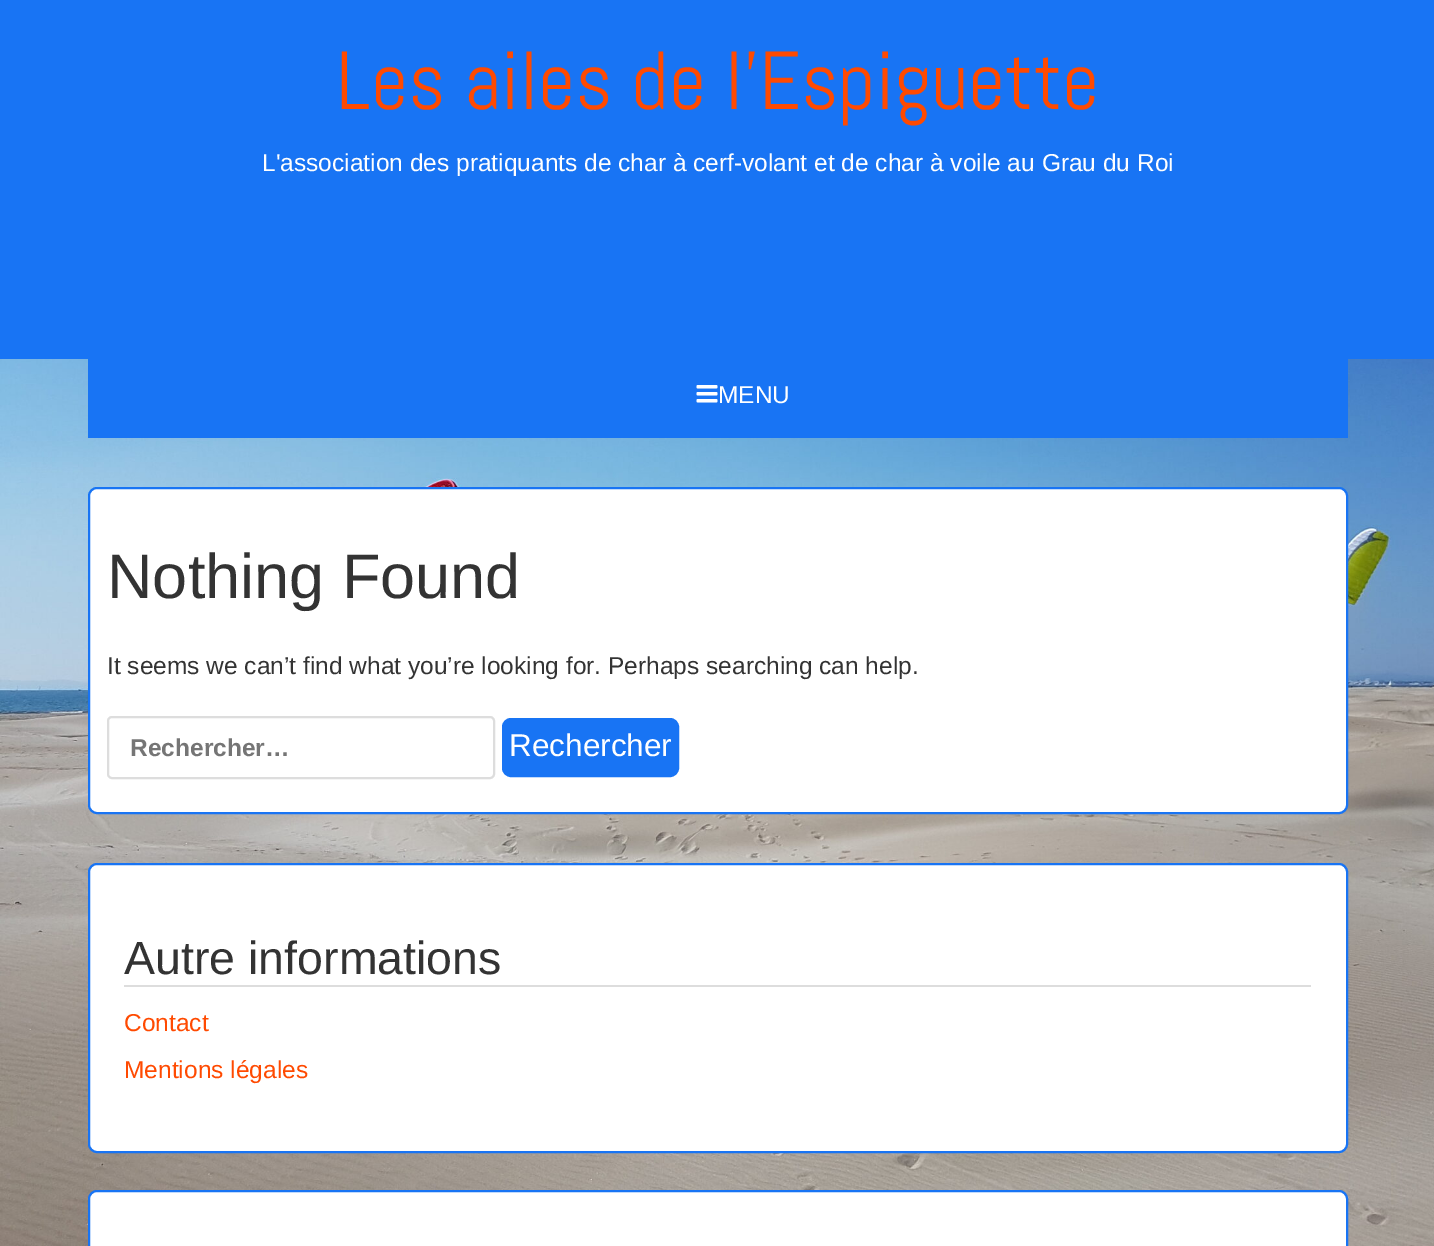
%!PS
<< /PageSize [1434 1246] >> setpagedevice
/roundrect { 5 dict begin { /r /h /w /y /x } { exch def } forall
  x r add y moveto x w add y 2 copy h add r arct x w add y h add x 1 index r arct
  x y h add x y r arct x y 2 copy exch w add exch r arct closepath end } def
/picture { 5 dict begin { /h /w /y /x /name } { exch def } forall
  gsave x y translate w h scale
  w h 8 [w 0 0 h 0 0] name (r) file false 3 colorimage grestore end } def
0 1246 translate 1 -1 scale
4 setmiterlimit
1 setgray
0 0 1434 1246 rectfill
(img1.rgb) 0 359 1434 887 picture
0.094 0.455 0.957 setrgbcolor
0 0 1434 359 rectfill
/Abel-Regular [82 0 0 -82 0 0] selectfont
1 0.29 0.004 setrgbcolor
336 109 moveto (Les ailes de l'Espiguette) show
/LiberationSans-Regular [24.5 0 0 -24.5 0 0] selectfont
1 setgray
262 171 moveto (L'association des pratiquants de char à cerf-volant et de char à voile au Grau du Roi) show
0.094 0.455 0.957 setrgbcolor
88 359 1260 79 rectfill
(img2.rgb) 696 385 22 18 picture
1 setgray
718 403 moveto (MENU) show
89 488 1258 325 8 roundrect gsave fill grestore
0.094 0.455 0.957 setrgbcolor
2 setlinewidth
stroke
/LiberationSans-Regular [63 0 0 -63 0 0] selectfont
0.2 setgray
107 598 moveto (Nothing Found) show
/LiberationSans-Regular [24.5 0 0 -24.5 0 0] selectfont
107 674 moveto (It seems we can’t find what you’re looking for. Perhaps searching can help.) show
0.867 setgray
108 717 386 61 4 roundrect stroke
/LiberationSans-Bold [24.5 0 0 -24.5 0 0] selectfont
0.459 setgray
130 756 moveto (Rechercher…) show
0.094 0.455 0.957 setrgbcolor
504 720 173 55 7 roundrect gsave fill grestore
4 setlinewidth
stroke
/LiberationSans-Regular [31.5 0 0 -31.5 0 0] selectfont
1 setgray
509 756 moveto (Rechercher) show
89 864 1258 288 8 roundrect gsave fill grestore
0.094 0.455 0.957 setrgbcolor
2 setlinewidth
stroke
0.867 setgray
124 985 1187 2 rectfill
/LiberationSans-Regular [46.5 0 0 -46.5 0 0] selectfont
0.2 setgray
124 974 moveto (Autre informations) show
/LiberationSans-Regular [24.5 0 0 -24.5 0 0] selectfont
1 0.29 0.004 setrgbcolor
124 1031 moveto (Contact) show
124 1078 moveto (Mentions légales) show
1 setgray
89 1191 1258 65 8 roundrect gsave fill grestore
0.094 0.455 0.957 setrgbcolor
stroke
showpage
